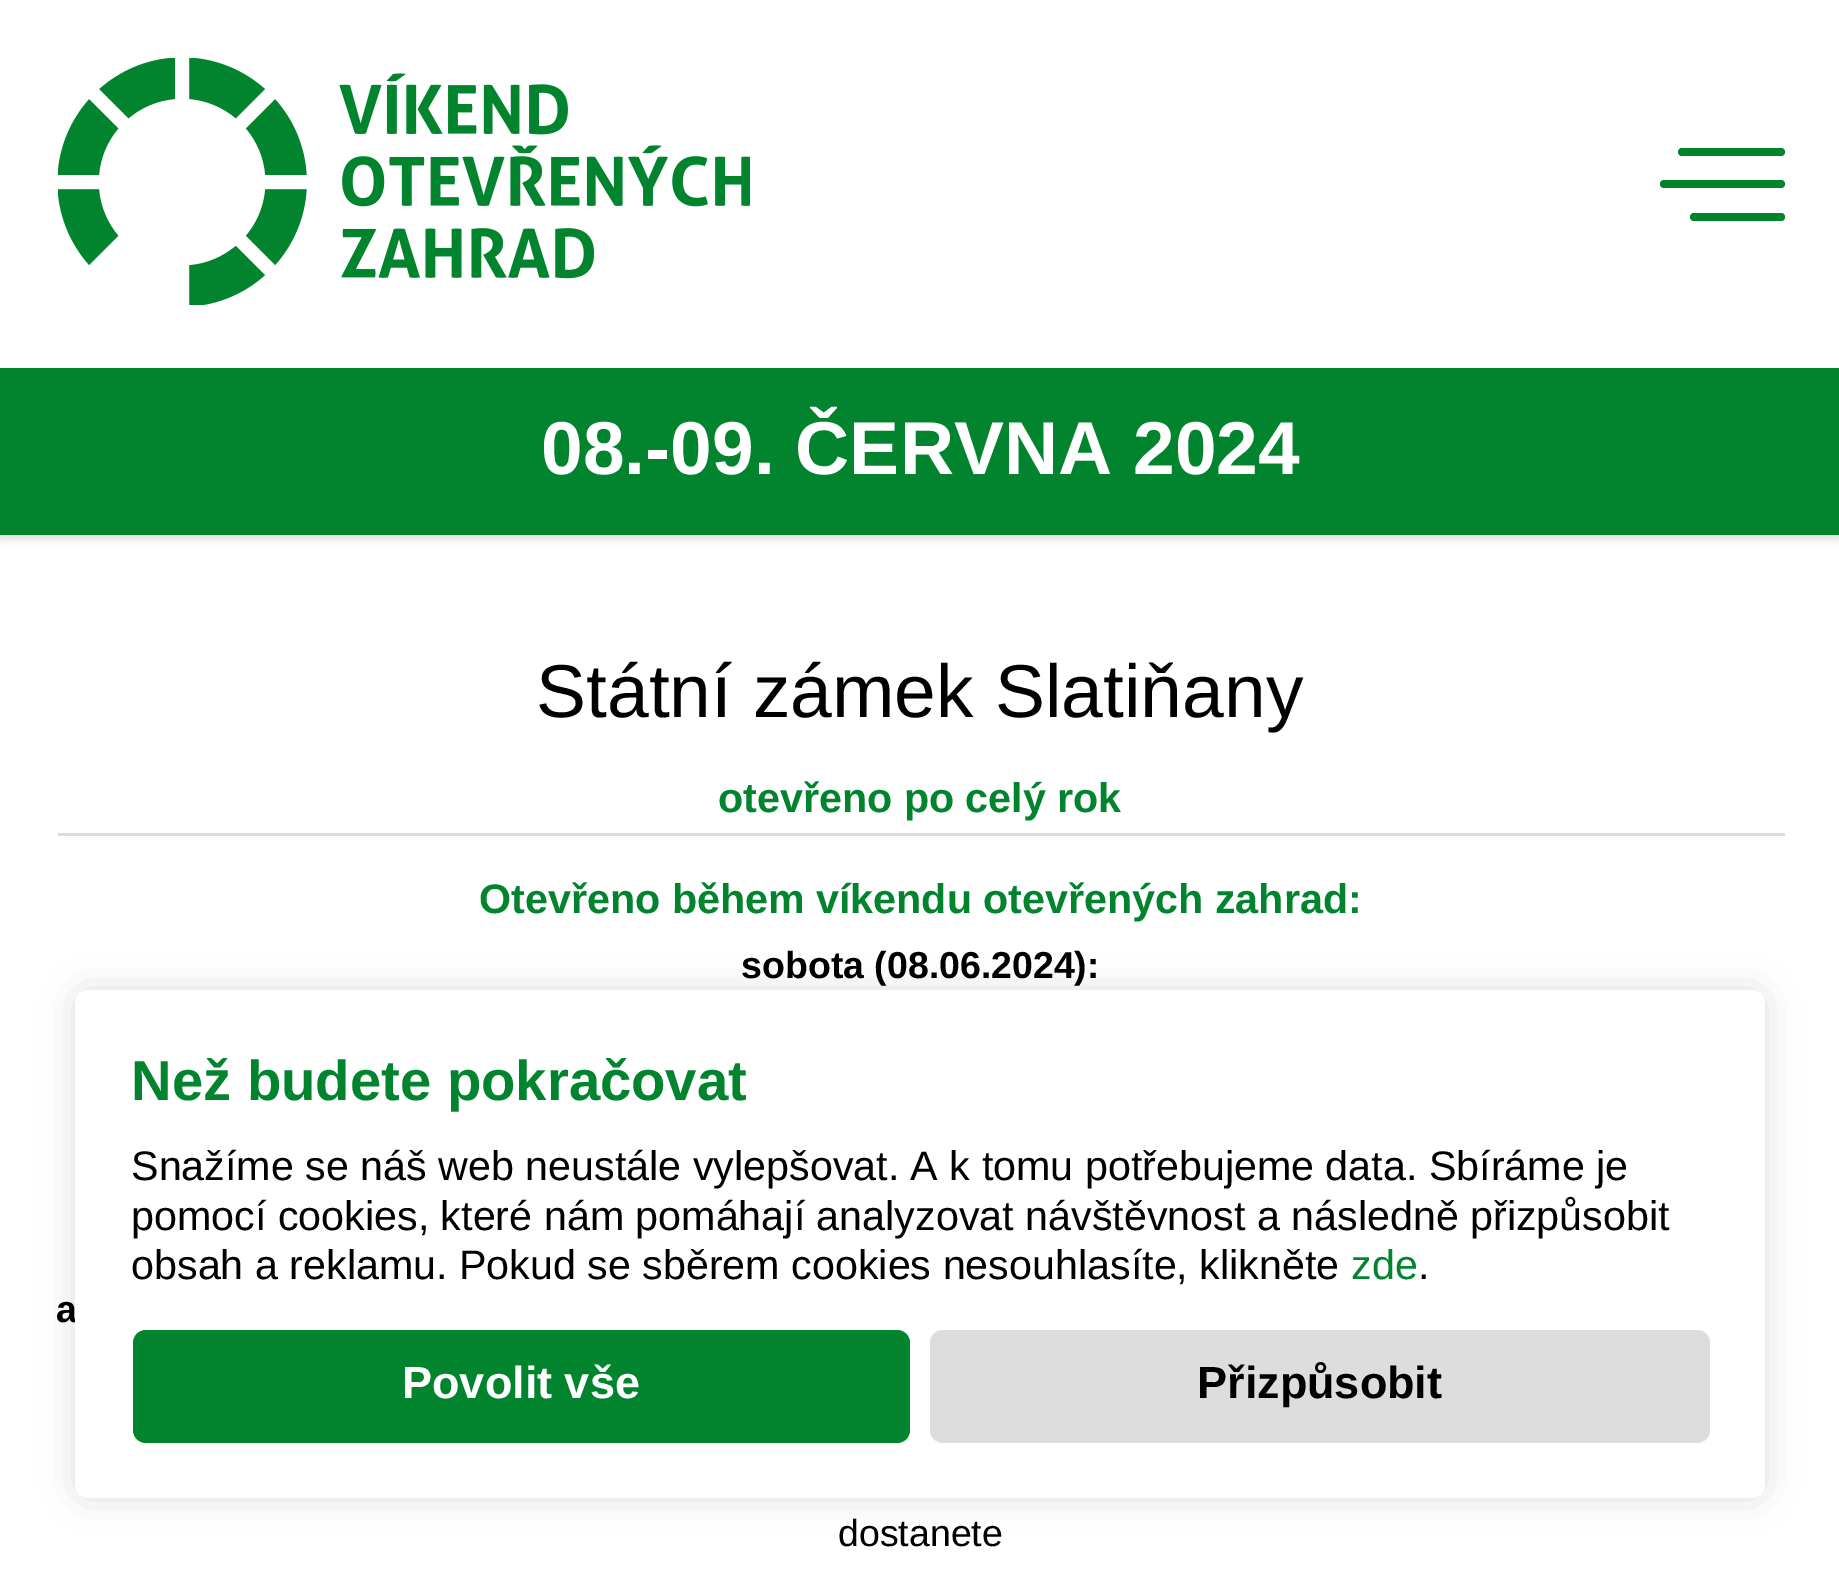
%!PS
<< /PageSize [1839 1572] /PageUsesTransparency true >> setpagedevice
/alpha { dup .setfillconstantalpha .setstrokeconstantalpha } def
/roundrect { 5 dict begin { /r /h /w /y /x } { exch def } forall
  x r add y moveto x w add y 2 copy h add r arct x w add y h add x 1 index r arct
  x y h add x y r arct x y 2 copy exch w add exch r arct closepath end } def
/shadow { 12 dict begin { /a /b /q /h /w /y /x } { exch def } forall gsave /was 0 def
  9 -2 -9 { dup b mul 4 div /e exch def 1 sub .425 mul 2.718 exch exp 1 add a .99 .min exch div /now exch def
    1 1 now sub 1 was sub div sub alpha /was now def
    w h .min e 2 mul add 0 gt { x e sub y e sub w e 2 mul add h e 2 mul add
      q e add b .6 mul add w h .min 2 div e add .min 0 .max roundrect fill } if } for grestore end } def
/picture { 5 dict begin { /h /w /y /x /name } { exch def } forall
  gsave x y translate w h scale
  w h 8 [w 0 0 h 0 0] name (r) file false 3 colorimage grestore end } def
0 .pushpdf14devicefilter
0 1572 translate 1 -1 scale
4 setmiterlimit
1 setgray
0 0 1839 1572 rectfill
0 setgray
0 525 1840 10 0 6 0.26 shadow
0.008 0.514 0.18 setrgbcolor
0 368 1839 167 rectfill
(img1.rgb) 58 58 692 247 picture
1678 148 107 8 4 roundrect fill
1660 180 125 8 4 roundrect fill
1690 213 95 8 4 roundrect fill
/LiberationSans-Bold [75 0 0 -75 0 0] selectfont
1 setgray
541 474 moveto (08.-09. ČERVNA 2024) show
/LiberationSans-Regular [75 0 0 -75 0 0] selectfont
0 setgray
536 717 moveto (Státní zámek Slatiňany) show
0.867 setgray
58 833 1727 3 rectfill
/LiberationSans-Bold [41.25 0 0 -41.25 0 0] selectfont
0.008 0.514 0.18 setrgbcolor
718 812 moveto (otevřeno po celý rok) show
479 913 moveto (Otevřeno během víkendu otevřených zahrad:) show
/LiberationSans-Bold [37.5 0 0 -37.5 0 0] selectfont
0 setgray
741 978 moveto (sobota \(08.06.2024\):) show
56 1322 moveto (a) show
/LiberationSans-Regular [37.5 0 0 -37.5 0 0] selectfont
838 1546 moveto (dostanete) show
75 990 1690 508 13 17 0.13 shadow
1 setgray
75 990 1690 508 13 roundrect fill
/LiberationSans-Bold [56.25 0 0 -56.25 0 0] selectfont
0.008 0.514 0.18 setrgbcolor
131 1100 moveto (Než budete pokračovat) show
/LiberationSans-Regular [41.25 0 0 -41.25 0 0] selectfont
0 setgray
131 1180 moveto (Snažíme se náš web neustále vylepšovat. A k tomu potřebujeme data. Sbíráme je) show
131 1230 moveto (pomocí cookies, které nám pomáhají analyzovat návštěvnost a následně přizpůsobit) show
131 1279 moveto (obsah a reklamu. Pokud se sběrem cookies nesouhlasíte, klikněte) show
0.008 0.514 0.18 setrgbcolor
1351 1279 moveto (zde) show
0 setgray
1418 1279 moveto (.) show
0.008 0.514 0.18 setrgbcolor
133 1330 777 113 13 roundrect fill
/LiberationSans-Bold [45 0 0 -45 0 0] selectfont
1 setgray
402 1398 moveto (Povolit vše) show
0.867 setgray
930 1330 780 113 13 roundrect fill
0 setgray
1197 1398 moveto (Přizpůsobit) show
.poppdf14devicefilter showpage
